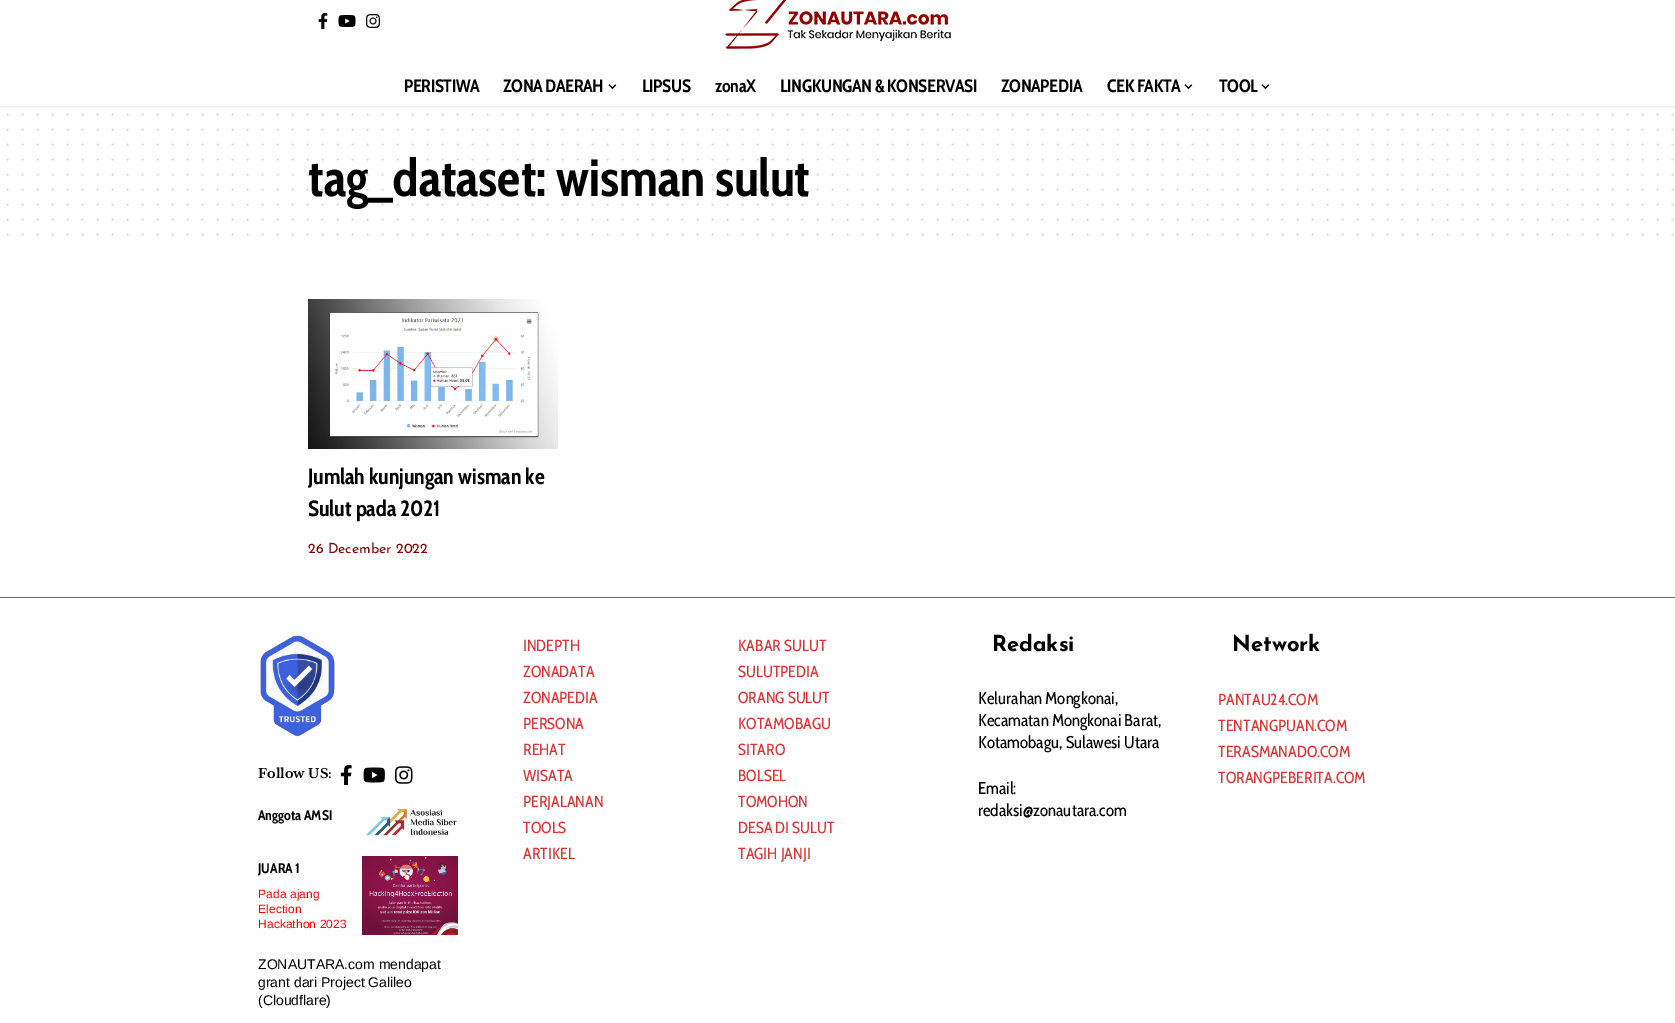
%!PS
<< /PageSize [1675 1023] /PageUsesTransparency true >> setpagedevice
/alpha { dup .setfillconstantalpha .setstrokeconstantalpha } def
/picture { 5 dict begin { /h /w /y /x /name } { exch def } forall
  gsave x y translate w h scale
  w h 8 [w 0 0 h 0 0] name (r) file false 3 colorimage grestore end } def
0 .pushpdf14devicefilter
0 1023 translate 1 -1 scale
4 setmiterlimit
1 setgray
0 0 1675 1023 rectfill
(img1.rgb) 318 13 10 16 picture
(img2.rgb) 338 15 18 12 picture
(img3.rgb) 366 14 14 14 picture
(img4.rgb) 725 0 226 49 picture
/CabinCondensed-Bold [18 0 0 -18 0 0] selectfont
0 setgray
404 92 moveto -0.4 0 (PERISTIWA) ashow
503 92 moveto -0.4 0 (ZONA DAERAH) ashow
(img5.rgb) 608 84 9 5 picture
642 92 moveto -0.4 0 (LIPSUS) ashow
715 92 moveto -0.4 0 (zonaX) ashow
780 92 moveto -0.4 0 (LINGKUNGAN & KONSERVASI) ashow
1001 92 moveto -0.4 0 (ZONAPEDIA) ashow
1107 92 moveto -0.4 0 (CEK FAKTA) ashow
(img5.rgb) 1184 84 9 5 picture
1219 92 moveto -0.4 0 (TOOL) ashow
(img5.rgb) 1261 84 9 5 picture
0.929 setgray
0 106 1675 1 rectfill
0.851 setgray
2 setlinewidth
1 setlinecap
[0 15] 0 setdash
newpath 7.5 114.5 moveto 1672.7 114.5 lineto stroke
newpath 7.5 129.5 moveto 1672.7 129.5 lineto stroke
newpath 7.5 144.5 moveto 1672.7 144.5 lineto stroke
/CabinCondensed-Bold [52 0 0 -52 0 0] selectfont
0 setgray
308 196 moveto (tag_dataset: wisman sulut) show
0.15 alpha
newpath 7.5 159.5 moveto 1672.7 159.5 lineto stroke
newpath 7.5 174.5 moveto 1672.7 174.5 lineto stroke
newpath 7.5 189.5 moveto 1672.7 189.5 lineto stroke
newpath 7.5 204.5 moveto 1672.7 204.5 lineto stroke
1 alpha
0.851 setgray
newpath 7.5 219.5 moveto 1672.7 219.5 lineto stroke
newpath 7.5 234.5 moveto 1672.7 234.5 lineto stroke
(img6.rgb) 308 299 250 150 picture
/CabinCondensed-Bold [22 0 0 -22 0 0] selectfont
0 setgray
308 484 moveto (Jumlah kunjungan wisman ke) show
308 516 moveto (Sulut pada 2021) show
/JosefinSans-Regular [14 0 0 -14 0 0] selectfont
0.518 0.008 0.008 setrgbcolor
308 553 moveto (26 December 2022) show
0.431 setgray
0 597 1675 1 rectfill
(img7.rgb) 260 635 75 102 picture
/LibreBaskerville-Bold [13 0 0 -13 0 0] selectfont
0 setgray
258 778 moveto (Follow US:) show
(img8.rgb) 340 765 12 20 picture
(img9.rgb) 363 767 22 16 picture
(img10.rgb) 395 766 18 18 picture
/CabinCondensed-Bold [14 0 0 -14 0 0] selectfont
258 820 moveto (Anggota AMSI) show
(img11.rgb) 366 809 91 27 picture
258 873 moveto (JUARA 1) show
/LiberationSans-Regular [12 0 0 -12 0 0] selectfont
1 0 0 setrgbcolor
258 898 moveto 0.1 0 (Pada ajang) ashow
258 913 moveto 0.1 0 (Election) ashow
258 928 moveto 0.1 0 (Hackathon 2023) ashow
(img12.rgb) 362 856 96 79 picture
/LiberationSans-Regular [14 0 0 -14 0 0] selectfont
0 setgray
258 969 moveto (ZONAUTARA.com mendapat) show
258 987 moveto (grant dari Project Galileo) show
258 1005 moveto (\(Cloudflare\)) show
/CabinCondensed-Regular [16 0 0 -16 0 0] selectfont
0.867 0.2 0.2 setrgbcolor
523 651 moveto (INDEPTH) show
523 677 moveto (ZONADATA) show
523 703 moveto (ZONAPEDIA) show
523 729 moveto (PERSONA) show
523 755 moveto (REHAT) show
523 781 moveto (WISATA) show
523 807 moveto (PERJALANAN) show
523 833 moveto (TOOLS) show
523 859 moveto (ARTIKEL) show
738 651 moveto (KABAR SULUT) show
738 677 moveto (SULUTPEDIA) show
738 703 moveto (ORANG SULUT) show
738 729 moveto (KOTAMOBAGU) show
738 755 moveto (SITARO) show
738 781 moveto (BOLSEL) show
738 807 moveto (TOMOHON) show
738 833 moveto (DESA DI SULUT) show
738 859 moveto (TAGIH JANJI) show
/JosefinSans-Bold [22 0 0 -22 0 0] selectfont
0 setgray
992 651 moveto (Redaksi) show
/CabinCondensed-Regular [17 0 0 -17 0 0] selectfont
978 704 moveto (Kelurahan Mongkonai,) show
978 726 moveto (Kecamatan Mongkonai Barat,) show
978 748 moveto (Kotamobagu, Sulawesi Utara) show
978 794 moveto (Email:) show
978 816 moveto (redaksi@zonautara.com) show
/JosefinSans-Bold [22 0 0 -22 0 0] selectfont
1232 651 moveto (Network) show
/CabinCondensed-Regular [16 0 0 -16 0 0] selectfont
0.867 0.2 0.2 setrgbcolor
1218 705 moveto (PANTAU24.COM) show
1218 731 moveto (TENTANGPUAN.COM) show
1218 757 moveto (TERASMANADO.COM) show
1218 783 moveto (TORANGPEBERITA.COM) show
.poppdf14devicefilter showpage
